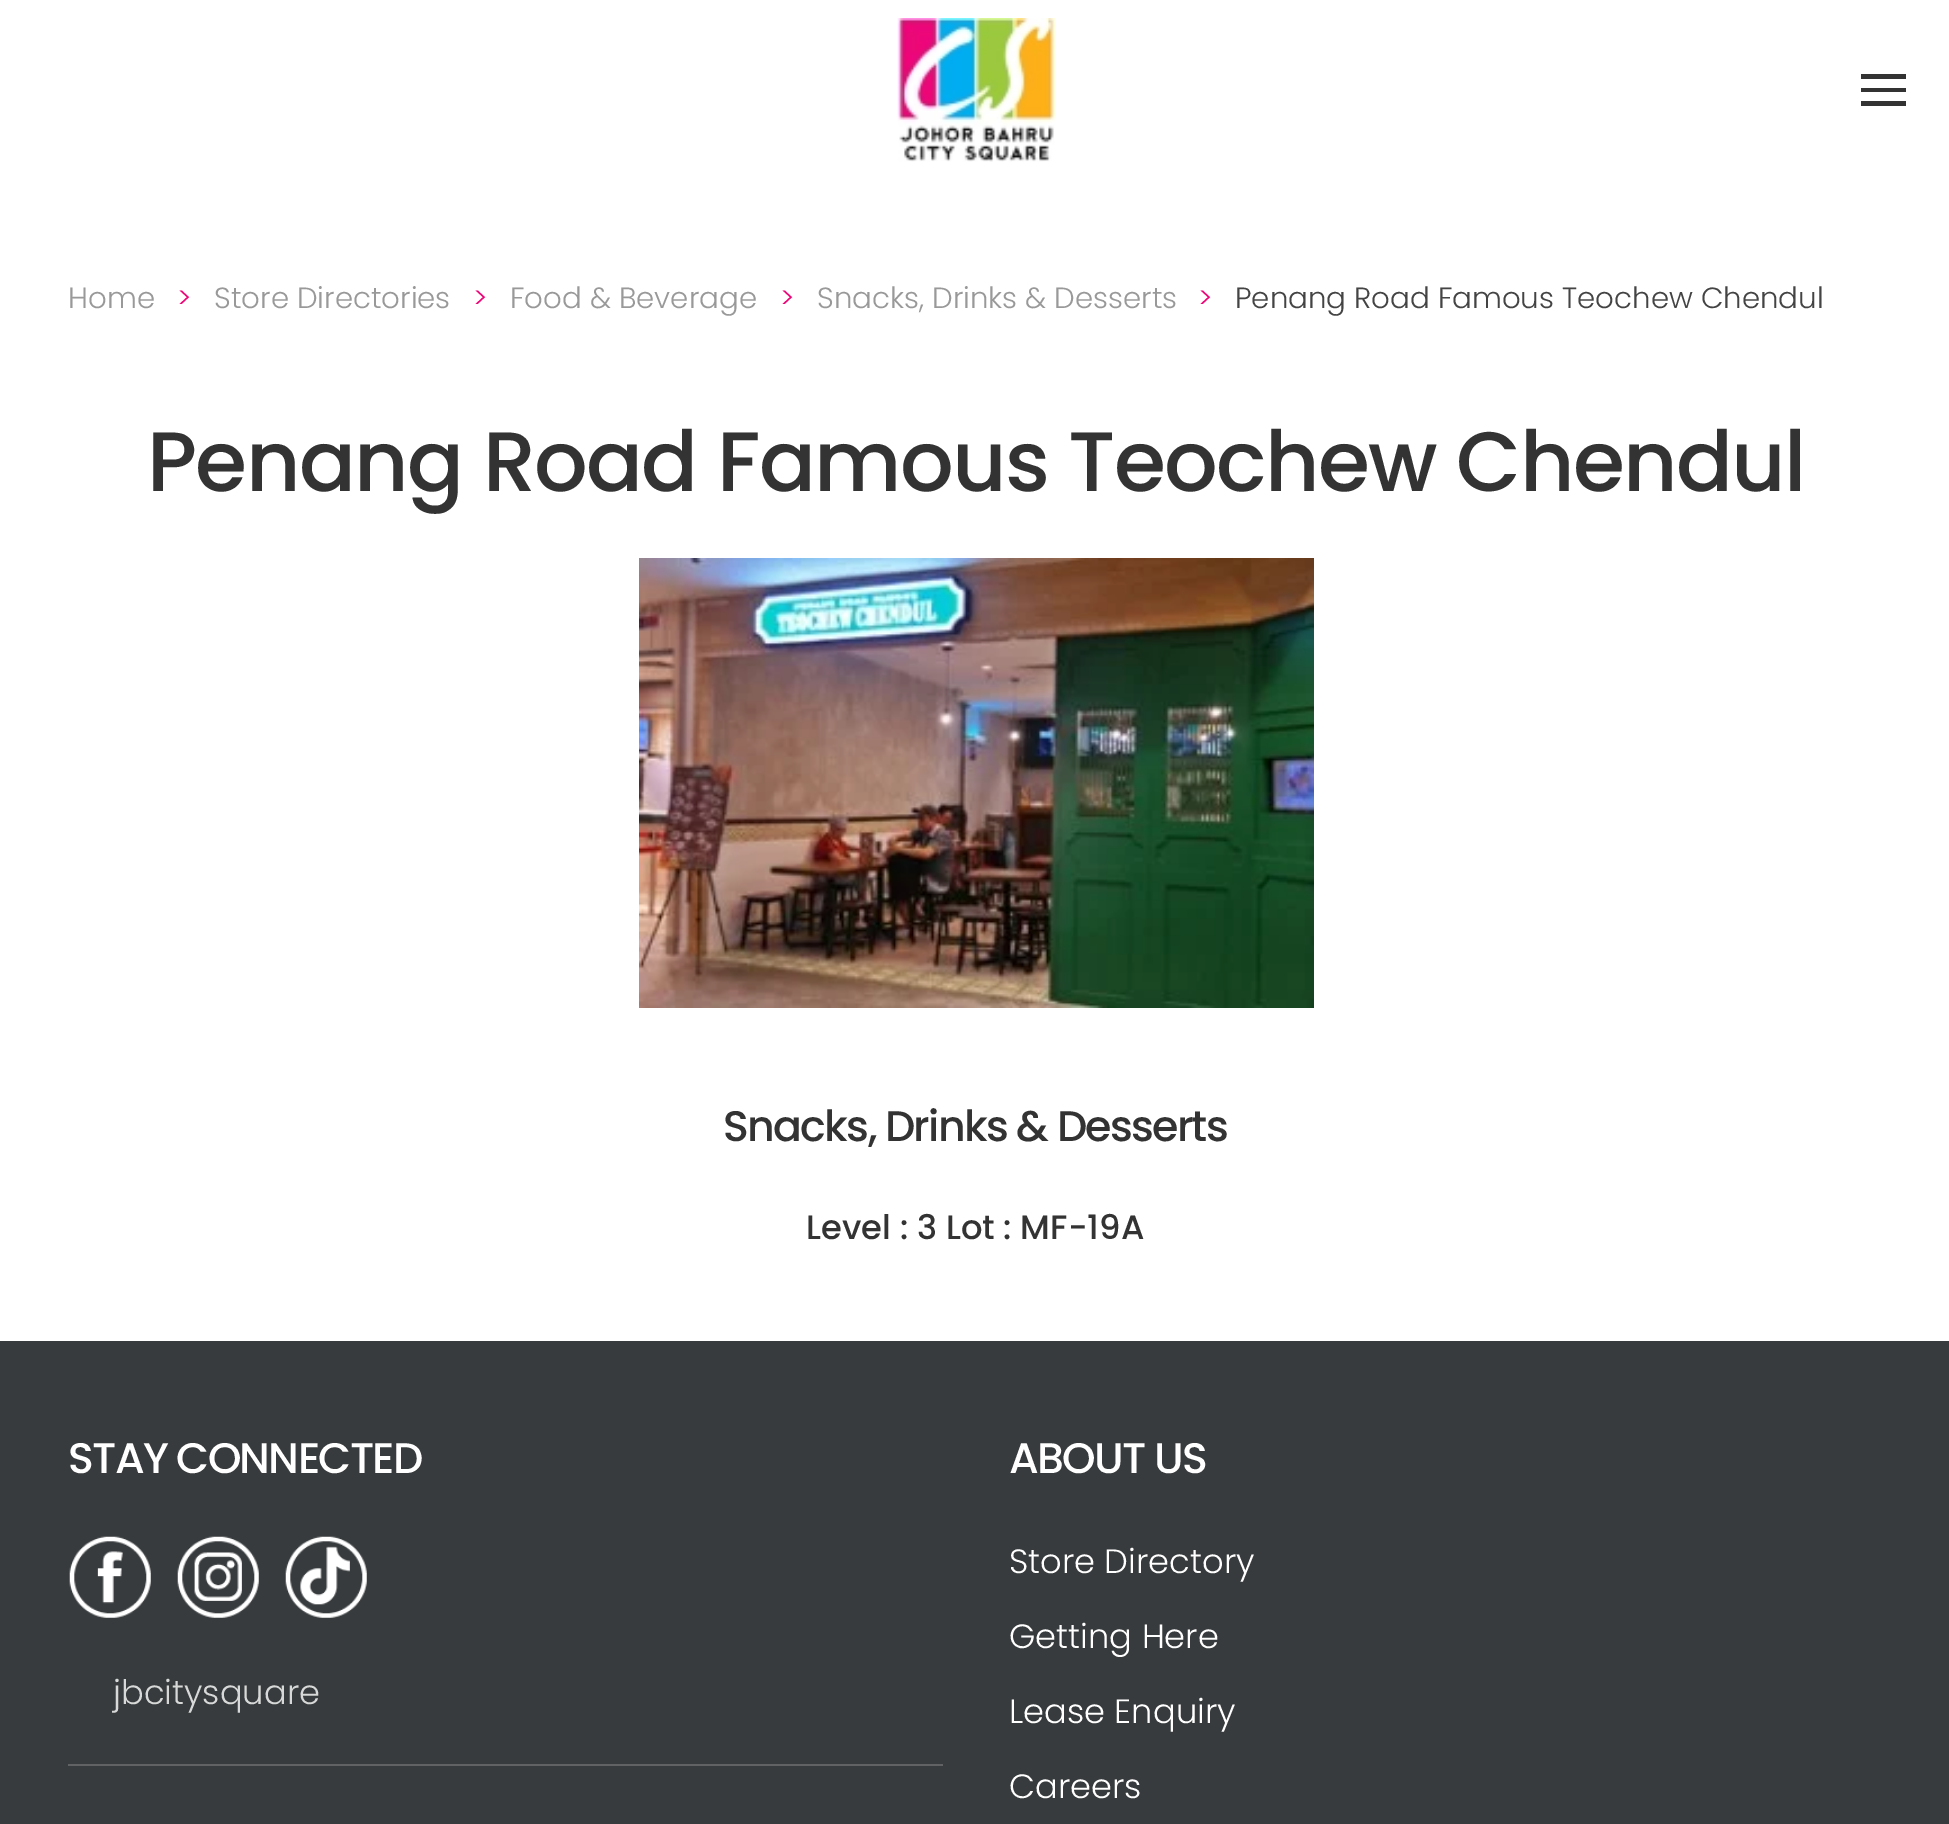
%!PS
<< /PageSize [1949 1824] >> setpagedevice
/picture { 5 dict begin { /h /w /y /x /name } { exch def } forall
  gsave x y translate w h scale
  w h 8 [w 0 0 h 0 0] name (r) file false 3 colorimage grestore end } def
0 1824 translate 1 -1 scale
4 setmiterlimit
1 setgray
0 0 1949 1824 rectfill
(img1.rgb) 897 18 159 144 picture
0.2 setgray
1861 74 45 5 rectfill
1861 88 45 4 rectfill
1861 101 45 5 rectfill
/Poppins-Light [29.25 0 0 -29.25 0 0] selectfont
0.6 setgray
68 308 moveto (Home) show
0.929 0.024 0.471 setrgbcolor
177 308 moveto (>) show
0.6 setgray
214 308 moveto (Store Directories) show
0.929 0.024 0.471 setrgbcolor
473 308 moveto (>) show
0.6 setgray
510 308 moveto (Food & Beverage) show
0.929 0.024 0.471 setrgbcolor
780 308 moveto (>) show
0.6 setgray
817 308 moveto (Snacks, Drinks & Desserts) show
0.929 0.024 0.471 setrgbcolor
1198 308 moveto (>) show
0.267 setgray
1235 308 moveto (Penang Road Famous Teochew Chendul) show
/Poppins-Medium [84.2 0 0 -84.2 0 0] selectfont
0.2 setgray
147 491 moveto -1.7 0 (Penang Road Famous Teochew Chendul) ashow
(img2.rgb) 639 558 675 450 picture
/Poppins-Medium [42.75 0 0 -42.75 0 0] selectfont
723 1141 moveto -1.7 0 (Snacks, Drinks & Desserts) ashow
/Poppins-Medium [33.75 0 0 -33.75 0 0] selectfont
806 1239 moveto (Level : 3 Lot : MF-19A) show
0.22 0.231 0.239 setrgbcolor
0 1341 1949 483 rectfill
/Poppins-Medium [42.75 0 0 -42.75 0 0] selectfont
1 setgray
68 1473 moveto -1.7 0 (STAY CONNECTED) ashow
(img3.rgb) 69 1536 82 82 picture
(img4.rgb) 177 1536 82 82 picture
(img5.rgb) 285 1536 82 82 picture
/Poppins-Light [33.75 0 0 -33.75 0 0] selectfont
0.843 0.847 0.847 setrgbcolor
113 1704 moveto (jbcitysquare) show
0.376 0.384 0.392 setrgbcolor
68 1764 875 2 rectfill
/Poppins-Medium [42.75 0 0 -42.75 0 0] selectfont
1 setgray
1009 1473 moveto -1.7 0 (ABOUT US) ashow
/Poppins-Light [33.75 0 0 -33.75 0 0] selectfont
1009 1573 moveto (Store Directory) show
1009 1648 moveto (Getting Here) show
1009 1723 moveto (Lease Enquiry) show
1009 1798 moveto (Careers) show
showpage
